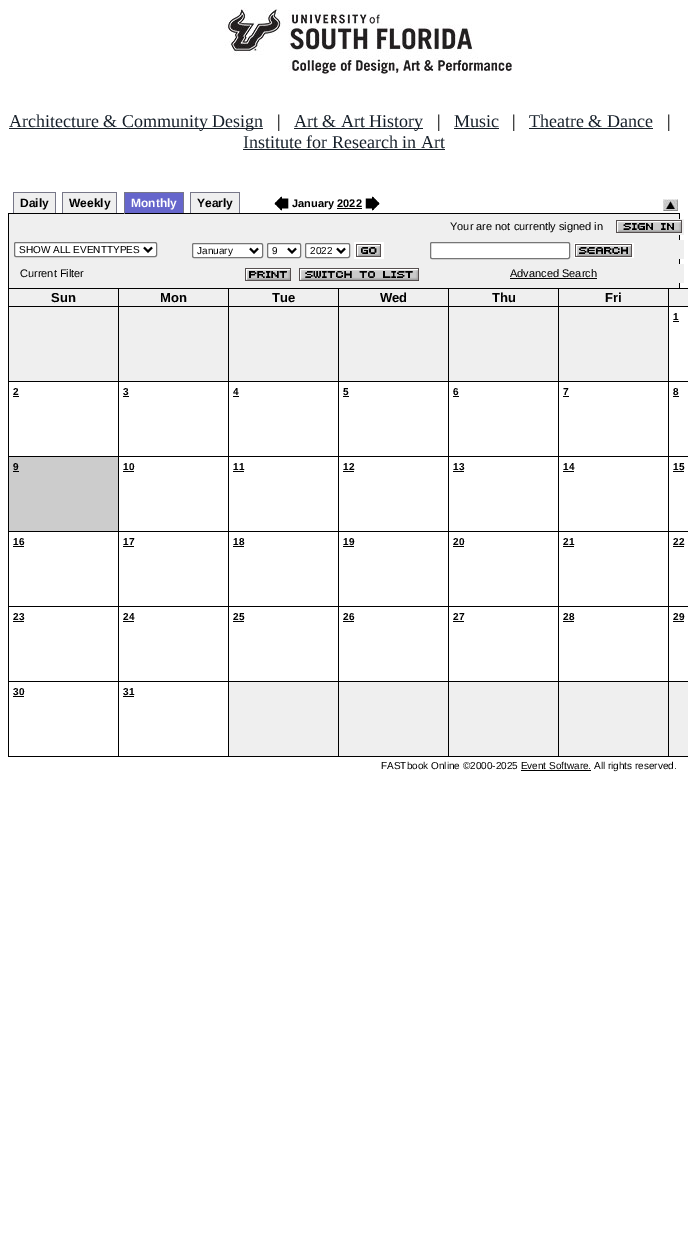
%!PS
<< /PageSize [688 1242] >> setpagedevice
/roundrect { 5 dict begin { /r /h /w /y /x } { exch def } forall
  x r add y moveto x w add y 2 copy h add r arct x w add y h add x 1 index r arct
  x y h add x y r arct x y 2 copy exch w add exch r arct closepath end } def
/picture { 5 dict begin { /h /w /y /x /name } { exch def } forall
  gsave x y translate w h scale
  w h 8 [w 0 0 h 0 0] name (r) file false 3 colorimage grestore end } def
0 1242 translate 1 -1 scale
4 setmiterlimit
1 setgray
0 0 688 1242 rectfill
(img1.rgb) 224 8 288 67 picture
0.09 0.125 0.165 setrgbcolor
9 128 254 1 rectfill
/LiberationSerif-Regular [18 0 0 -18 0 0] selectfont
9 127 moveto (Architecture & Community Design) show
0 setgray
277 127 moveto (|) show
0.09 0.125 0.165 setrgbcolor
294 128 129 1 rectfill
294 127 moveto (Art & Art History) show
0 setgray
437 127 moveto (|) show
0.09 0.125 0.165 setrgbcolor
454 127 moveto (Music) show
454 128 45 1 rectfill
0 setgray
512 127 moveto (|) show
0.09 0.125 0.165 setrgbcolor
529 127 moveto (Theatre & Dance) show
529 128 124 1 rectfill
0 setgray
667 127 moveto (|) show
0.09 0.125 0.165 setrgbcolor
243 148 moveto (Institute for Research in Art) show
243 149 202 1 rectfill
0.937 setgray
14 193 41 20 rectfill
/LiberationSans-Bold [12 0 0 -12 0 0] selectfont
0 setgray
20 207 moveto (Daily) show
0.467 0.467 0.533 setrgbcolor
13 192 43 1 rectfill
55 192 1 21 rectfill
13 192 1 21 rectfill
0.937 setgray
63 193 53 20 rectfill
0 setgray
69 207 moveto (Weekly) show
0.467 0.467 0.533 setrgbcolor
62 192 55 1 rectfill
116 192 1 21 rectfill
62 192 1 21 rectfill
0.4 0.4 0.8 setrgbcolor
125 193 58 20 rectfill
1 setgray
131 207 moveto (Monthly) show
0.467 0.467 0.533 setrgbcolor
124 192 60 1 rectfill
0 setgray
8 213 672 1 rectfill
0.467 0.467 0.533 setrgbcolor
183 192 1 22 rectfill
0 setgray
183 213 1 1 rectfill
0.467 0.467 0.533 setrgbcolor
124 192 1 22 rectfill
0.937 setgray
191 193 48 20 rectfill
0 setgray
197 207 moveto (Yearly) show
0.467 0.467 0.533 setrgbcolor
190 192 50 1 rectfill
239 192 1 21 rectfill
190 192 1 21 rectfill
(img2.rgb) 274 196 15 15 picture
/LiberationSans-Bold [11 0 0 -11 0 0] selectfont
0 setgray
292 207 moveto (January 2022) show
337 208 25 1 rectfill
(img3.rgb) 365 196 15 15 picture
(img4.rgb) 663 199 15 12 picture
0.937 setgray
9 214 670 74 rectfill
0 setgray
679 213 1 75 rectfill
8 213 1 75 rectfill
0.937 setgray
679 219 5 16 rectfill
/LiberationSans-Regular [11 0 0 -11 0 0] selectfont
0 setgray
450 230 moveto (Your are not currently signed in) show
(img5.rgb) 616 220 66 13 picture
0.937 setgray
679 240 5 19 rectfill
1 setgray
14.5 242.5 142 14 1.5 roundrect gsave fill grestore
0.463 setgray
stroke
0 setgray
2 setlinewidth
newpath 144 247.5 moveto 148 251.5 lineto 152 247.5 lineto stroke
/LiberationSans-Regular [10 0 0 -10 0 0] selectfont
19 253 moveto (SHOW ALL EVENTTYPES) show
1 setgray
192.5 243.5 70 14 1.5 roundrect gsave fill grestore
0.463 setgray
1 setlinewidth
stroke
0 setgray
2 setlinewidth
newpath 250 248.5 moveto 254 252.5 lineto 258 248.5 lineto stroke
197 254 moveto (January) show
1 setgray
267.5 243.5 33 14 1.5 roundrect gsave fill grestore
0.463 setgray
1 setlinewidth
stroke
0 setgray
2 setlinewidth
newpath 288 248.5 moveto 292 252.5 lineto 296 248.5 lineto stroke
272 254 moveto (9) show
1 setgray
305.5 243.5 44 14 1.5 roundrect gsave fill grestore
0.463 setgray
1 setlinewidth
stroke
0 setgray
2 setlinewidth
newpath 337 248.5 moveto 341 252.5 lineto 345 248.5 lineto stroke
310 254 moveto (2022) show
1 setgray
354 242 30 17 rectfill
(img6.rgb) 356 244 25 13 picture
430.5 242.5 139 16 1.5 roundrect gsave fill grestore
0.463 setgray
1 setlinewidth
stroke
1 setgray
574 243 60 15 rectfill
(img7.rgb) 575 244 57 13 picture
0.937 setgray
679 264 5 19 rectfill
/LiberationSans-Regular [11 0 0 -11 0 0] selectfont
0 setgray
20 277 moveto (Current Filter) show
(img8.rgb) 245 268 46 13 picture
(img9.rgb) 299 268 120 13 picture
510 277 moveto (Advanced Search) show
510 278 87 1 rectfill
8 288 680 1 rectfill
8 288 1 469 rectfill
0.937 setgray
9 289 679 17 rectfill
0 setgray
9 306 679 1 rectfill
118 289 1 468 rectfill
/LiberationSans-Bold [13 0 0 -13 0 0] selectfont
51 302 moveto (Sun) show
228 289 1 468 rectfill
160 302 moveto (Mon) show
338 289 1 468 rectfill
272 302 moveto (Tue) show
448 289 1 468 rectfill
380 302 moveto (Wed) show
558 289 1 468 rectfill
492 302 moveto (Thu) show
668 289 1 468 rectfill
605 302 moveto (Fri) show
0.937 setgray
9 307 109 74 rectfill
0 setgray
9 381 679 1 rectfill
0.937 setgray
119 307 109 74 rectfill
229 307 109 74 rectfill
339 307 109 74 rectfill
449 307 109 74 rectfill
559 307 109 74 rectfill
/LiberationSans-Bold [10 0 0 -10 0 0] selectfont
0 setgray
673 320 moveto (1) show
673 321 6 1 rectfill
9 456 679 1 rectfill
13 395 moveto (2) show
13 396 6 1 rectfill
123 395 moveto (3) show
123 396 6 1 rectfill
233 395 moveto (4) show
233 396 6 1 rectfill
343 395 moveto (5) show
343 396 6 1 rectfill
453 395 moveto (6) show
453 396 6 1 rectfill
563 395 moveto (7) show
563 396 6 1 rectfill
673 395 moveto (8) show
673 396 6 1 rectfill
0.8 setgray
9 457 109 74 rectfill
0 setgray
9 531 679 1 rectfill
13 470 moveto (9) show
13 471 6 1 rectfill
123 470 moveto (10) show
123 471 11 1 rectfill
233 470 moveto (11) show
233 471 11 1 rectfill
343 470 moveto (12) show
343 471 11 1 rectfill
453 470 moveto (13) show
453 471 11 1 rectfill
563 470 moveto (14) show
563 471 11 1 rectfill
673 470 moveto (15) show
673 471 11 1 rectfill
9 606 679 1 rectfill
13 545 moveto (16) show
13 546 11 1 rectfill
123 545 moveto (17) show
123 546 11 1 rectfill
233 545 moveto (18) show
233 546 11 1 rectfill
343 545 moveto (19) show
343 546 11 1 rectfill
453 545 moveto (20) show
453 546 11 1 rectfill
563 545 moveto (21) show
563 546 11 1 rectfill
673 545 moveto (22) show
673 546 11 1 rectfill
9 681 679 1 rectfill
13 620 moveto (23) show
13 621 11 1 rectfill
123 620 moveto (24) show
123 621 11 1 rectfill
233 620 moveto (25) show
233 621 11 1 rectfill
343 620 moveto (26) show
343 621 11 1 rectfill
453 620 moveto (27) show
453 621 11 1 rectfill
563 620 moveto (28) show
563 621 11 1 rectfill
673 620 moveto (29) show
673 621 11 1 rectfill
9 756 679 1 rectfill
13 695 moveto (30) show
13 696 11 1 rectfill
123 695 moveto (31) show
123 696 11 1 rectfill
0.937 setgray
229 682 109 74 rectfill
339 682 109 74 rectfill
449 682 109 74 rectfill
559 682 109 74 rectfill
669 682 19 74 rectfill
/LiberationSans-Regular [10 0 0 -10 0 0] selectfont
0 setgray
381 769 moveto (FASTbook Online ©2000-2025 Event Software. All rights reserved.) show
521 770 70 1 rectfill
showpage
